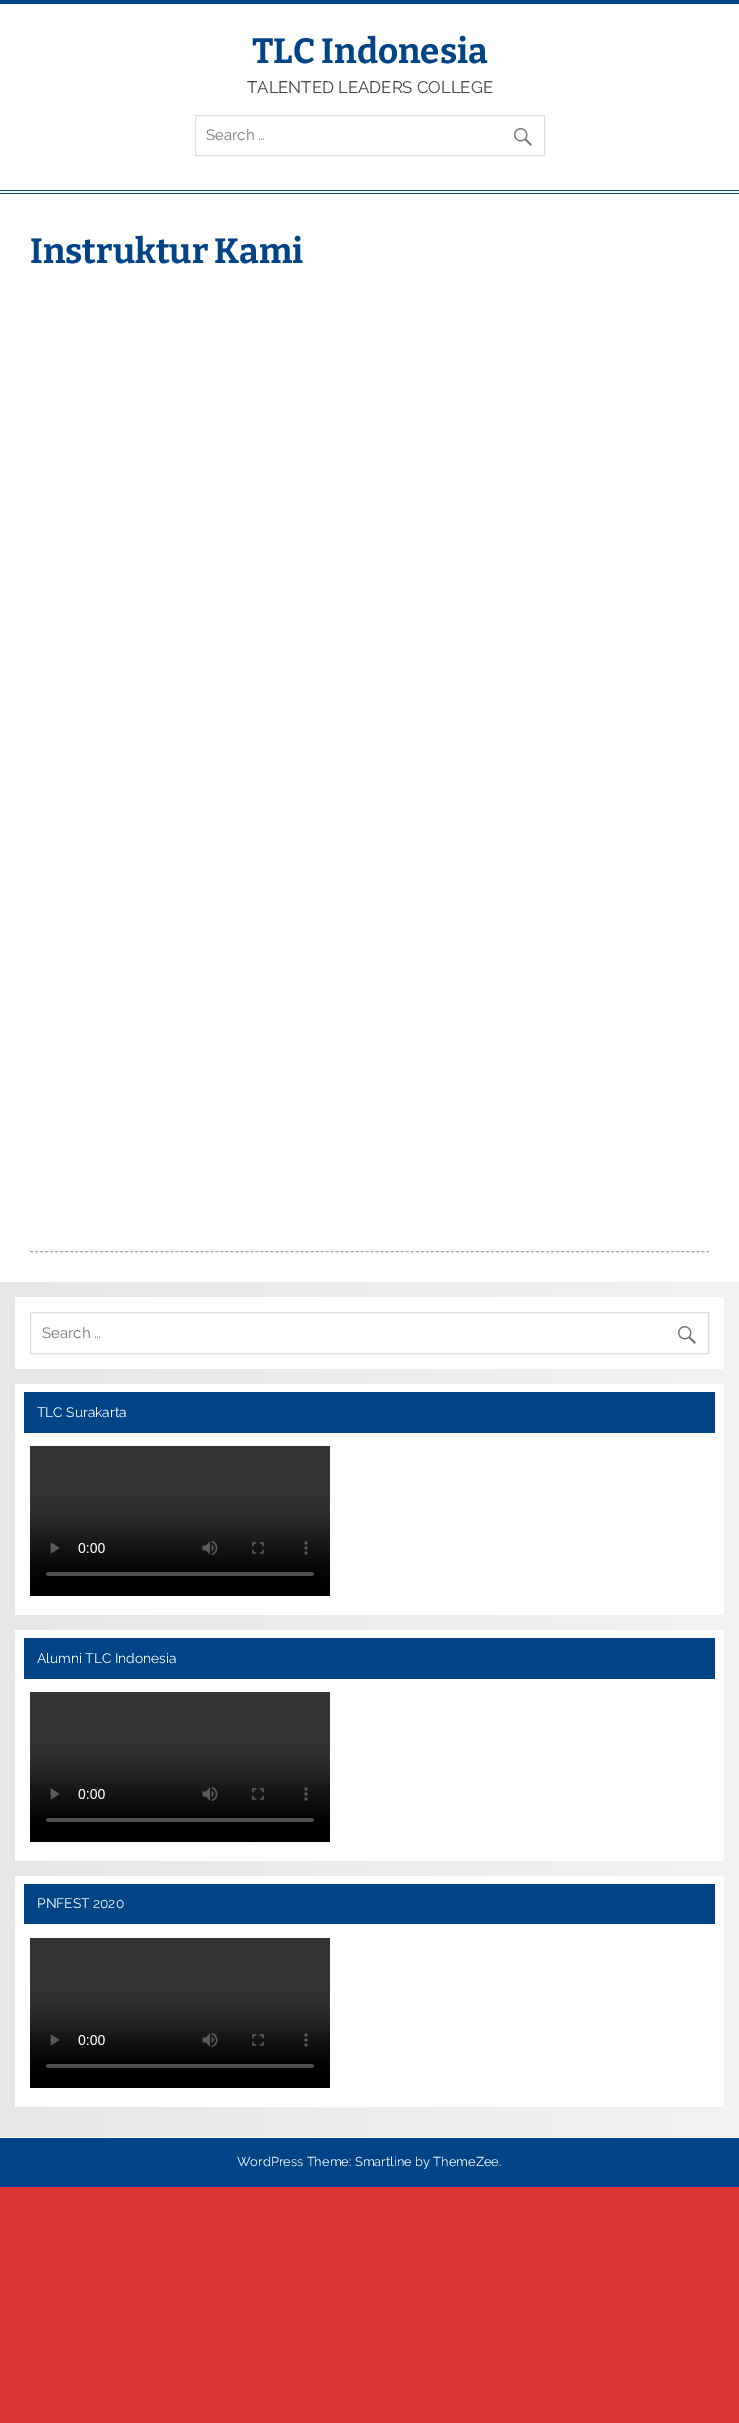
%!PS
<< /PageSize [739 2423] >> setpagedevice
/picture { 5 dict begin { /h /w /y /x /name } { exch def } forall
  gsave x y translate w h scale
  w h 8 [w 0 0 h 0 0] name (r) file false 3 colorimage grestore end } def
0 2423 translate 1 -1 scale
4 setmiterlimit
0.867 0.2 0.2 setrgbcolor
0 0 739 2423 rectfill
1 setgray
0 4 739 2134 rectfill
0 0.267 0.533 setrgbcolor
0 0 739 4 rectfill
/Bitter-Bold [35 0 0 -35 0 0] selectfont
252 63 moveto (TLC Indonesia) show
/Raleway-Regular [16.75 0 0 -16.75 0 0] selectfont
0.267 setgray
247 93 moveto (TALENTED LEADERS COLLEGE) show
0.867 setgray
195.5 115.5 349 40 rectstroke
/Raleway-Regular [15 0 0 -15 0 0] selectfont
0.459 setgray
206 140 moveto (Search …) show
(img1.rgb) 514 128 18 18 picture
0 0.267 0.533 setrgbcolor
0 190 739 1 rectfill
0 193 739 1 rectfill
0.667 setgray
[3 2.01] 0 setdash
newpath 30 1251.5 moveto 709 1251.5 lineto stroke
/Bitter-Bold [35 0 0 -35 0 0] selectfont
0 0.267 0.533 setrgbcolor
30 263 moveto (Instruktur Kami) show
gsave newpath 0 1282 moveto 739 1282 lineto 739 2137 lineto 0 2137 lineto closepath clip newpath
<< /ShadingType 2 /ColorSpace /DeviceRGB /Coords [0 1710 739 1710] /Extend [true true] /Function << /FunctionType 2 /Domain [0 1] /C0 [0.902 0.902 0.902] /C1 [0.953 0.953 0.953] /N 1 >> >> shfill grestore
1 setgray
15 1297 709 72 rectfill
0.867 setgray
[] 0 setdash
30.5 1312.5 678 41 rectstroke
/Raleway-Regular [15 0 0 -15 0 0] selectfont
0.459 setgray
42 1338 moveto (Search …) show
(img1.rgb) 678 1326 18 18 picture
1 setgray
15 1384 709 231 rectfill
0 0.267 0.533 setrgbcolor
24 1392 691 41 rectfill
/Raleway-Regular [13.75 0 0 -13.75 0 0] selectfont
1 setgray
37 1417 moveto (TLC Surakarta) show
(img2.rgb) 30 1446 300 150 picture
15 1630 709 231 rectfill
0 0.267 0.533 setrgbcolor
24 1638 691 41 rectfill
1 setgray
37 1663 moveto (Alumni TLC Indonesia) show
(img3.rgb) 30 1692 300 150 picture
15 1876 709 231 rectfill
0 0.267 0.533 setrgbcolor
24 1884 691 40 rectfill
1 setgray
37 1908 moveto (PNFEST 2020) show
(img4.rgb) 30 1938 300 150 picture
0 0.267 0.533 setrgbcolor
0 2138 739 49 rectfill
/Raleway-Regular [12.9 0 0 -12.9 0 0] selectfont
1 setgray
237 2166 moveto (WordPress Theme: Smartline by ThemeZee.) show
showpage
